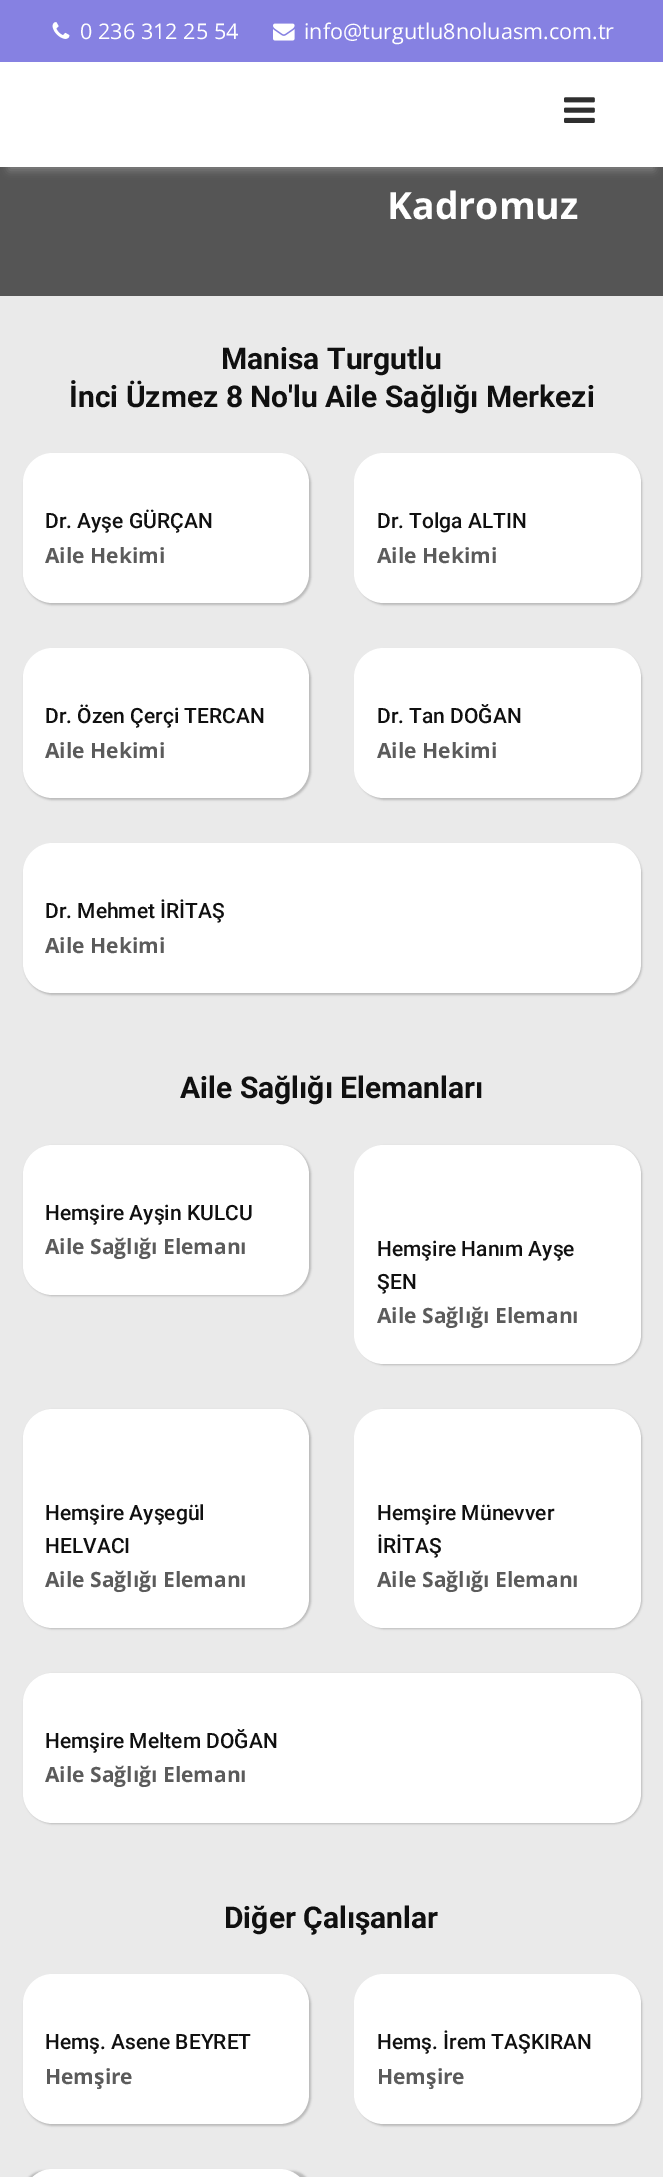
%!PS
<< /PageSize [663 2177] /PageUsesTransparency true >> setpagedevice
/alpha { dup .setfillconstantalpha .setstrokeconstantalpha } def
/roundrect { 5 dict begin { /r /h /w /y /x } { exch def } forall
  x r add y moveto x w add y 2 copy h add r arct x w add y h add x 1 index r arct
  x y h add x y r arct x y 2 copy exch w add exch r arct closepath end } def
/shadow { 12 dict begin { /a /b /q /h /w /y /x } { exch def } forall gsave /was 0 def
  9 -2 -9 { dup b mul 4 div /e exch def 1 sub .425 mul 2.718 exch exp 1 add a .99 .min exch div /now exch def
    1 1 now sub 1 was sub div sub alpha /was now def
    w h .min e 2 mul add 0 gt { x e sub y e sub w e 2 mul add h e 2 mul add
      q e add b .6 mul add w h .min 2 div e add .min 0 .max roundrect fill } if } for grestore end } def
/picture { 5 dict begin { /h /w /y /x /name } { exch def } forall
  gsave x y translate w h scale
  w h 8 [w 0 0 h 0 0] name (r) file false 3 colorimage grestore end } def
0 .pushpdf14devicefilter
0 2177 translate 1 -1 scale
4 setmiterlimit
0.525 0.506 0.886 setrgbcolor
0 0 663 2177 rectfill
(img1.rgb) 52 22 18 17 picture
/OpenSans-Regular [21.6 0 0 -21.6 0 0] selectfont
1 setgray
80 39 moveto (0 236 312 25 54) show
(img2.rgb) 273 23 22 18 picture
304 39 moveto (info@turgutlu8noluasm.com.tr) show
0.333 setgray
0 167 663 129 rectfill
0.667 setgray
9 83 645 87 0 4.5 0.54 shadow
1 setgray
0 62 663 105 rectfill
(img3.rgb) 564 97 31 26 picture
/OpenSans-Bold [37.5 0 0 -37.5 0 0] selectfont
387 219 moveto (Kadromuz) show
0.918 setgray
0 296 663 1881 rectfill
/Roboto-Bold [30 0 0 -30 0 0] selectfont
0.063 setgray
221 369 moveto (Manisa Turgutlu) show
69 407 moveto (İnci Üzmez 8 No'lu Aile Sağlığı Merkezi) show
0 setgray
24 455 287 150 30 1 0.2 shadow
1 setgray
23 453 286 150 30 roundrect fill
/Roboto-Medium [21 0 0 -21 0 0] selectfont
0.063 setgray
45 528 moveto (Dr. Ayşe GÜRÇAN) show
/OpenSans-Bold [21 0 0 -21 0 0] selectfont
0.357 setgray
45 563 moveto (Aile Hekimi) show
0 setgray
356 455 286 150 30 1 0.2 shadow
1 setgray
354 453 287 150 30 roundrect fill
/Roboto-Medium [21 0 0 -21 0 0] selectfont
0.063 setgray
377 528 moveto (Dr. Tolga ALTIN) show
/OpenSans-Bold [21 0 0 -21 0 0] selectfont
0.357 setgray
377 563 moveto (Aile Hekimi) show
0 setgray
24 650 287 150 30 1 0.2 shadow
1 setgray
23 648 286 150 30 roundrect fill
/Roboto-Medium [21 0 0 -21 0 0] selectfont
0.063 setgray
45 723 moveto (Dr. Özen Çerçi TERCAN) show
/OpenSans-Bold [21 0 0 -21 0 0] selectfont
0.357 setgray
45 758 moveto (Aile Hekimi) show
0 setgray
356 650 286 150 30 1 0.2 shadow
1 setgray
354 648 287 150 30 roundrect fill
/Roboto-Medium [21 0 0 -21 0 0] selectfont
0.063 setgray
377 723 moveto (Dr. Tan DOĞAN) show
/OpenSans-Bold [21 0 0 -21 0 0] selectfont
0.357 setgray
377 758 moveto (Aile Hekimi) show
0 setgray
24 845 618 150 30 1 0.2 shadow
1 setgray
23 843 618 150 30 roundrect fill
/Roboto-Medium [21 0 0 -21 0 0] selectfont
0.063 setgray
45 918 moveto (Dr. Mehmet İRİTAŞ) show
/OpenSans-Bold [21 0 0 -21 0 0] selectfont
0.357 setgray
45 953 moveto (Aile Hekimi) show
/Roboto-Bold [30 0 0 -30 0 0] selectfont
0.063 setgray
180 1098 moveto (Aile Sağlığı Elemanları) show
0 setgray
24 1146 287 150 30 1 0.2 shadow
1 setgray
23 1145 286 150 30 roundrect fill
/Roboto-Medium [21 0 0 -21 0 0] selectfont
0.063 setgray
45 1220 moveto (Hemşire Ayşin KULCU) show
/OpenSans-Bold [21 0 0 -21 0 0] selectfont
0.357 setgray
45 1254 moveto (Aile Sağlığı Elemanı) show
0 setgray
356 1146 286 219 30 1 0.2 shadow
1 setgray
354 1145 287 219 30 roundrect fill
/Roboto-Medium [21 0 0 -21 0 0] selectfont
0.063 setgray
377 1256 moveto (Hemşire Hanım Ayşe) show
377 1289 moveto (ŞEN) show
/OpenSans-Bold [21 0 0 -21 0 0] selectfont
0.357 setgray
377 1323 moveto (Aile Sağlığı Elemanı) show
0 setgray
24 1410 287 219 30 1 0.2 shadow
1 setgray
23 1409 286 219 30 roundrect fill
/Roboto-Medium [21 0 0 -21 0 0] selectfont
0.063 setgray
45 1520 moveto (Hemşire Ayşegül) show
45 1553 moveto (HELVACI) show
/OpenSans-Bold [21 0 0 -21 0 0] selectfont
0.357 setgray
45 1587 moveto (Aile Sağlığı Elemanı) show
0 setgray
356 1410 286 219 30 1 0.2 shadow
1 setgray
354 1409 287 219 30 roundrect fill
/Roboto-Medium [21 0 0 -21 0 0] selectfont
0.063 setgray
377 1520 moveto (Hemşire Münevver) show
377 1553 moveto (İRİTAŞ) show
/OpenSans-Bold [21 0 0 -21 0 0] selectfont
0.357 setgray
377 1587 moveto (Aile Sağlığı Elemanı) show
0 setgray
24 1674 618 150 30 1 0.2 shadow
1 setgray
23 1673 618 150 30 roundrect fill
/Roboto-Medium [21 0 0 -21 0 0] selectfont
0.063 setgray
45 1748 moveto (Hemşire Meltem DOĞAN) show
/OpenSans-Bold [21 0 0 -21 0 0] selectfont
0.357 setgray
45 1782 moveto (Aile Sağlığı Elemanı) show
/Roboto-Bold [30 0 0 -30 0 0] selectfont
0.063 setgray
224 1928 moveto (Diğer Çalışanlar) show
0 setgray
24 1976 287 150 30 1 0.2 shadow
1 setgray
23 1974 286 150 30 roundrect fill
/Roboto-Medium [21 0 0 -21 0 0] selectfont
0.063 setgray
45 2049 moveto (Hemş. Asene BEYRET) show
/OpenSans-Bold [21 0 0 -21 0 0] selectfont
0.357 setgray
45 2084 moveto (Hemşire) show
0 setgray
356 1976 286 150 30 1 0.2 shadow
1 setgray
354 1974 287 150 30 roundrect fill
/Roboto-Medium [21 0 0 -21 0 0] selectfont
0.063 setgray
377 2049 moveto (Hemş. İrem TAŞKIRAN) show
/OpenSans-Bold [21 0 0 -21 0 0] selectfont
0.357 setgray
377 2084 moveto (Hemşire) show
0 setgray
24 2171 287 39 30 1 0.2 shadow
1 setgray
23 2169 286 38 30 roundrect fill
.poppdf14devicefilter showpage
